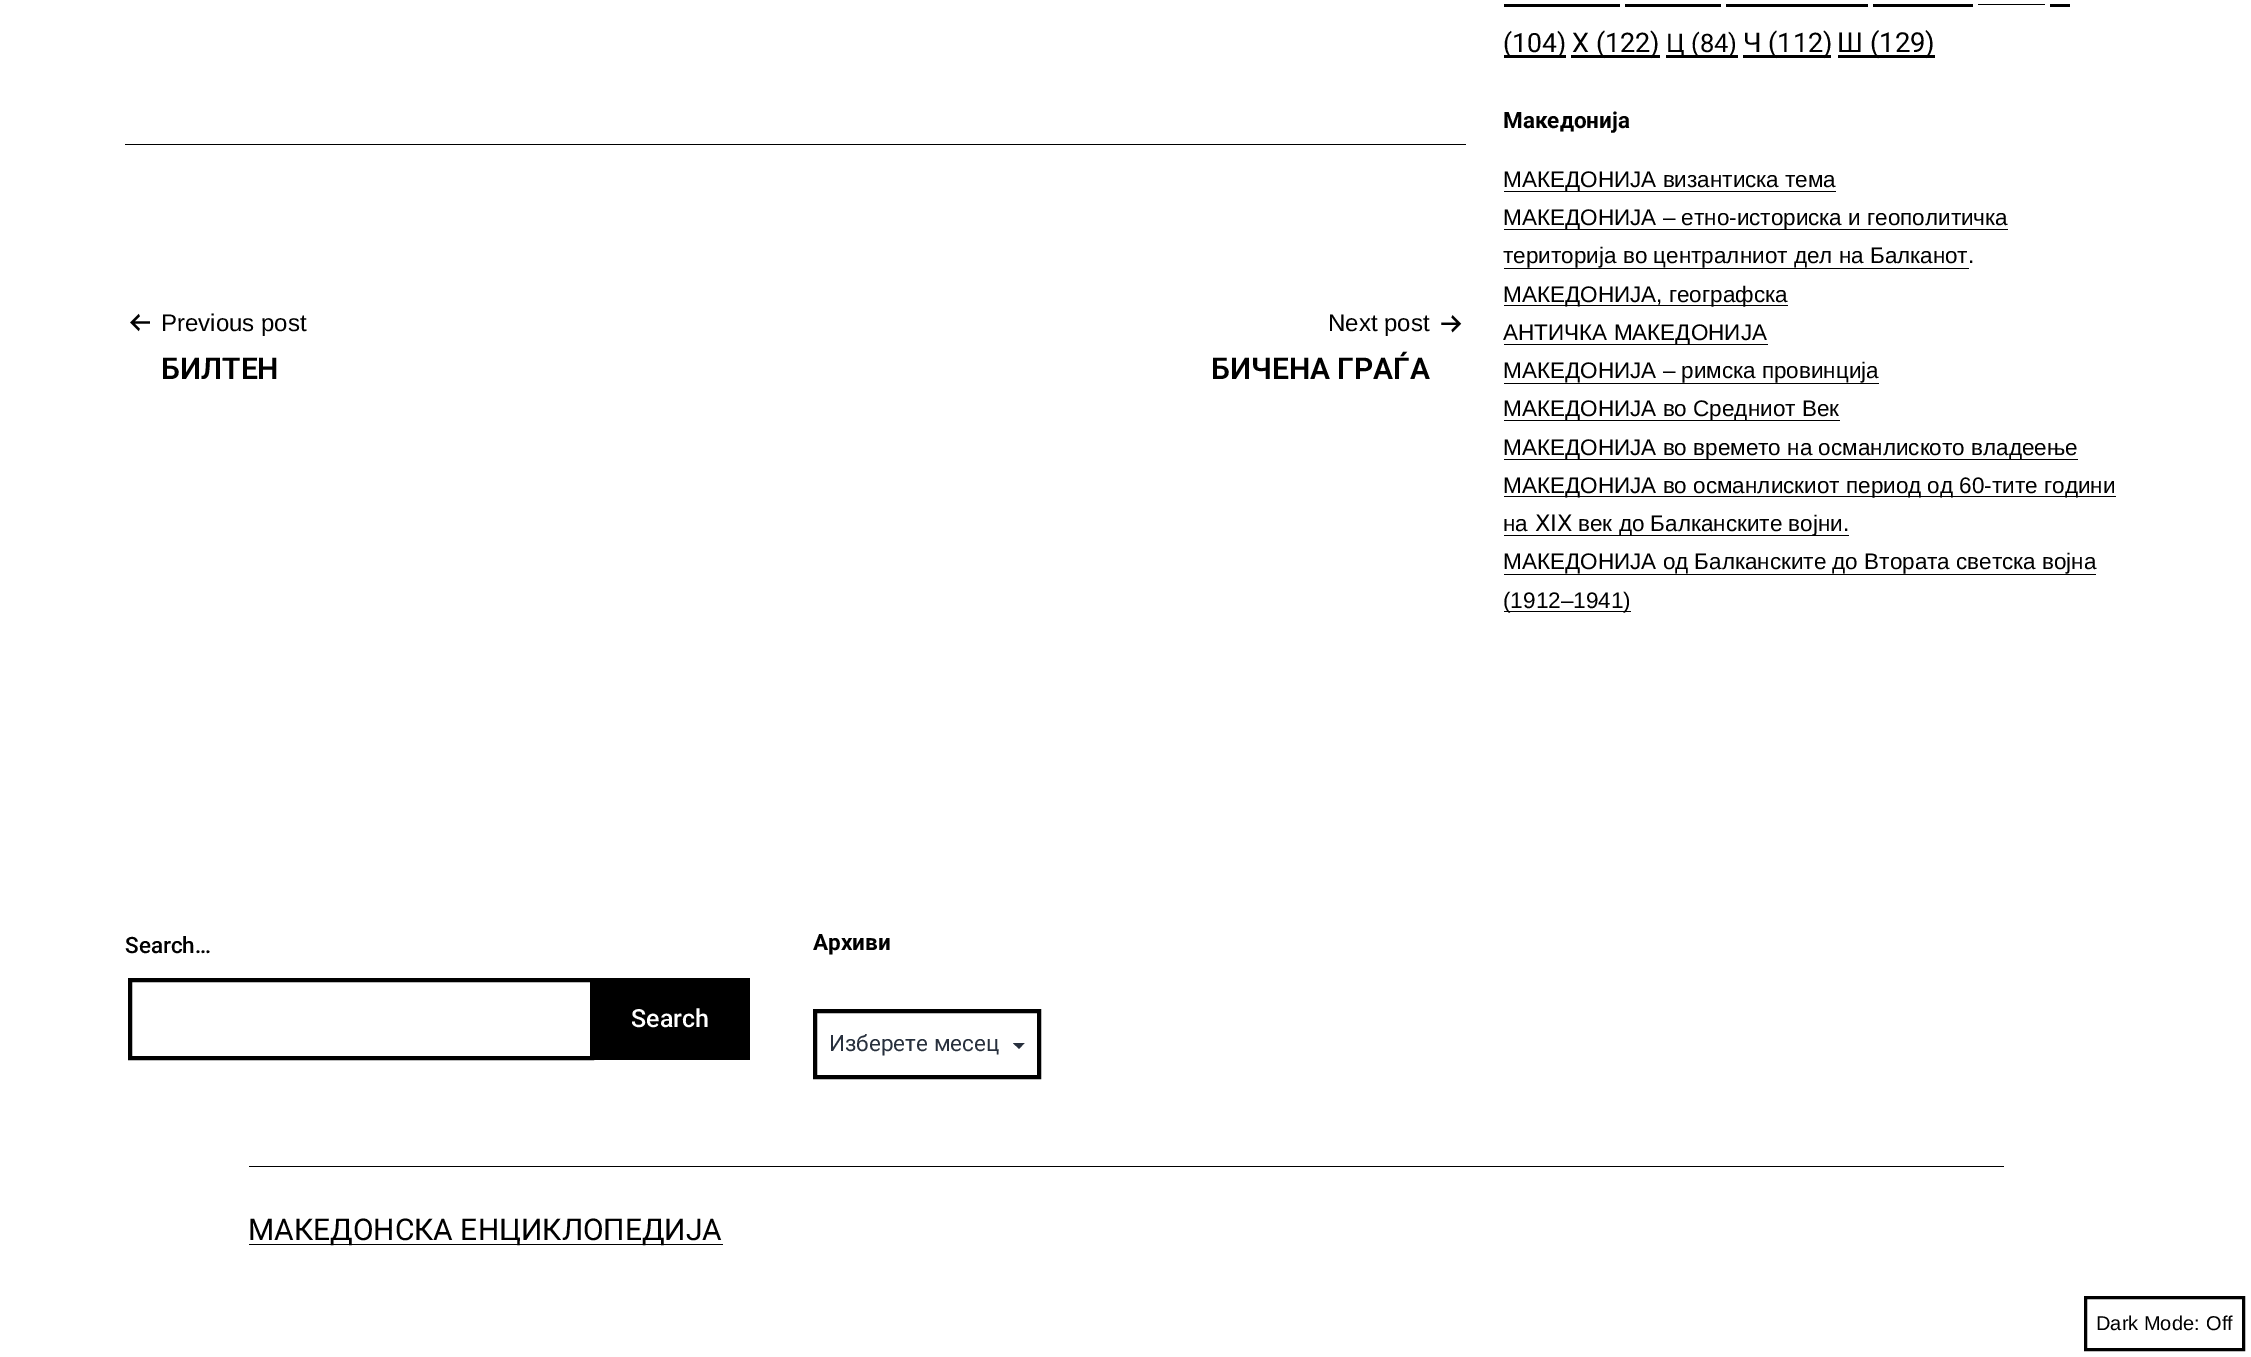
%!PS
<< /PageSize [2251 1357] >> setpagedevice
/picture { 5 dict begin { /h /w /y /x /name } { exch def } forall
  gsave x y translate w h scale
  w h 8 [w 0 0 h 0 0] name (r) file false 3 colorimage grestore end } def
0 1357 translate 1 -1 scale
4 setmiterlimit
1 setgray
0 0 2251 1357 rectfill
0 setgray
125 144 1341 1 rectfill
(img1.rgb) 130 313 20 19 picture
/LiberationSans-Regular [24 0 0 -24 0 0] selectfont
161 331 moveto (Previous post) show
/Roboto-SemiBold [30 0 0 -30 0 0] selectfont
161 379 moveto (БИЛТЕН) show
/LiberationSans-Regular [24 0 0 -24 0 0] selectfont
1328 331 moveto (Next post) show
(img2.rgb) 1441 315 21 18 picture
/Roboto-SemiBold [30 0 0 -30 0 0] selectfont
1211 379 moveto (БИЧЕНА ГРАЃА) show
1504 4 116 3 rectfill
1625 4 96 3 rectfill
1726 4 142 3 rectfill
1873 4 100 3 rectfill
1978 4 67 1 rectfill
1504 55 62 3 rectfill
/Roboto-Regular [26.5 0 0 -26.5 0 0] selectfont
1503 52 moveto (\(104\)) show
2050 4 20 3 rectfill
1571 55 89 3 rectfill
/Roboto-Regular [27 0 0 -27 0 0] selectfont
1572 52 moveto (Х \(122\)) show
1666 55 72 3 rectfill
/Roboto-Regular [25.5 0 0 -25.5 0 0] selectfont
1666 52 moveto (Ц \(84\)) show
1743 55 88 3 rectfill
/Roboto-Regular [27 0 0 -27 0 0] selectfont
1743 52 moveto (Ч \(112\)) show
1838 55 97 3 rectfill
/Roboto-Regular [27.5 0 0 -27.5 0 0] selectfont
1837 52 moveto (Ш \(129\)) show
/Roboto-Bold [22.5 0 0 -22.5 0 0] selectfont
1503 128 moveto (Македонија) show
1504 191 332 1 rectfill
/LiberationSans-Regular [22.5 0 0 -22.5 0 0] selectfont
1503 187 moveto (МАКЕДОНИЈА византиска тема) show
1504 229 504 1 rectfill
1503 225 moveto (МАКЕДОНИЈА – етно-историска и геополитичка) show
1503 263 moveto (територија во централниот дел на Балканот.) show
1504 268 465 1 rectfill
1504 305 284 1 rectfill
1503 302 moveto (МАКЕДОНИЈА, географска) show
1504 344 264 1 rectfill
1503 340 moveto (АНТИЧКА МАКЕДОНИЈА) show
1503 378 moveto (МАКЕДОНИЈА – римска провинција) show
1504 383 375 1 rectfill
1504 420 336 1 rectfill
1503 416 moveto (МАКЕДОНИЈА во Средниот Век) show
1504 459 574 1 rectfill
1503 455 moveto (МАКЕДОНИЈА во времето на османлиското владеење) show
1504 496 612 1 rectfill
1503 493 moveto (МАКЕДОНИЈА во османлискиот период од 60-тите години) show
1503 531 moveto (на) show
1504 535 345 1 rectfill
/DejaVuSans-Regular [22.5 0 0 -22.5 0 0] selectfont
1535 531 moveto (ⅩⅠⅩ) show
/LiberationSans-Regular [22.5 0 0 -22.5 0 0] selectfont
1578 531 moveto (век до Балканските војни.) show
1503 569 moveto (МАКЕДОНИЈА од Балканските до Втората светска војна) show
1504 574 592 1 rectfill
1504 611 127 1 rectfill
1503 608 moveto (\(1912–1941\)) show
/Roboto-Medium [22.5 0 0 -22.5 0 0] selectfont
125 953 moveto (Search…) show
4 setlinewidth
130 980 462 78 rectstroke
594 978 156 82 rectfill
/Roboto-Medium [25 0 0 -25 0 0] selectfont
1 setgray
631 1027 moveto (Search) show
/Roboto-Bold [22.5 0 0 -22.5 0 0] selectfont
0 setgray
813 950 moveto (Архиви) show
gsave
1013 1043 12 12 rectclip
0.157 0.188 0.239 setrgbcolor
newpath 1012.5 1042.5 moveto 1025 1042.5 lineto 1019 1049 lineto closepath fill
grestore
815 1011 224 66 rectstroke
/Roboto-Regular [22.5 0 0 -22.5 0 0] selectfont
0.157 0.188 0.239 setrgbcolor
829 1051 moveto (Изберете месец) show
0 setgray
249 1166 1755 1 rectfill
249 1244 474 1 rectfill
/Roboto-Regular [30 0 0 -30 0 0] selectfont
248 1240 moveto (МАКЕДОНСКА ЕНЦИКЛОПЕДИЈА) show
3 setlinewidth
2085.5 1297.5 158 52 rectstroke
/LiberationSans-Regular [20 0 0 -20 0 0] selectfont
2096 1330 moveto (Dark Mode:) show
2206 1330 moveto (Off) show
showpage
